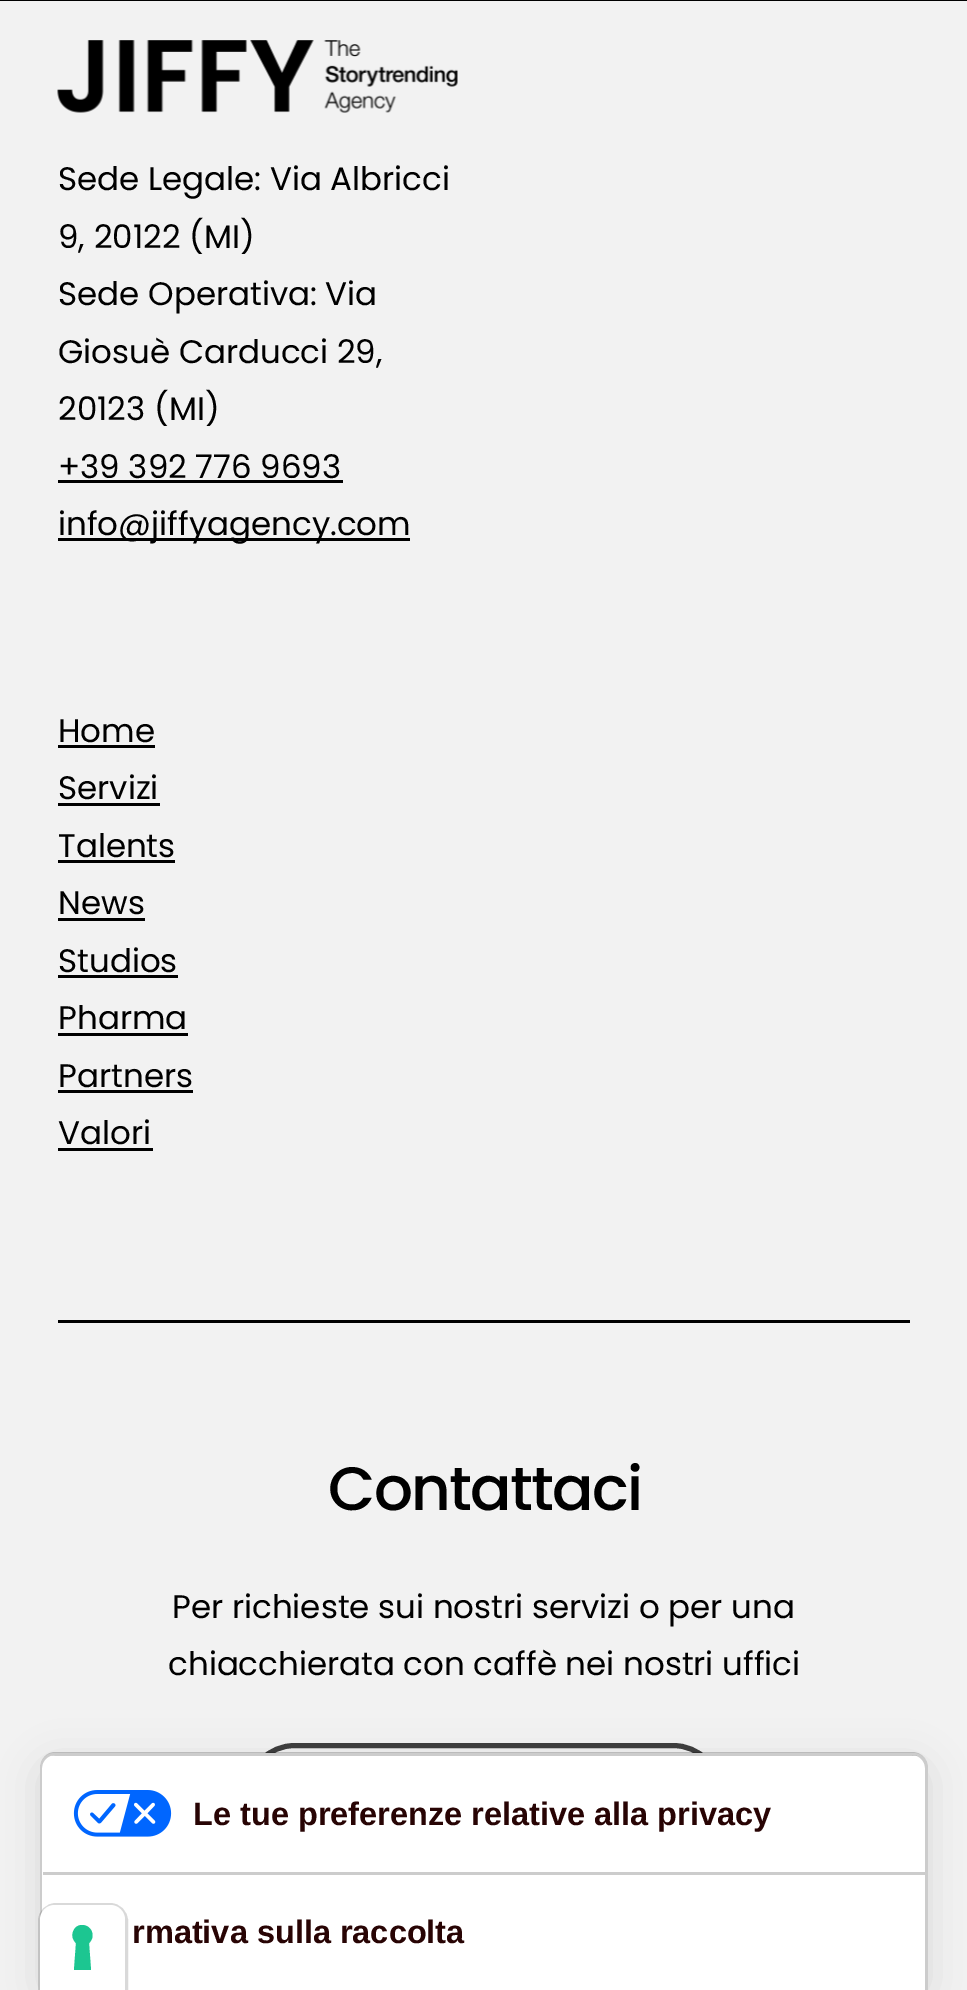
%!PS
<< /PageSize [967 1990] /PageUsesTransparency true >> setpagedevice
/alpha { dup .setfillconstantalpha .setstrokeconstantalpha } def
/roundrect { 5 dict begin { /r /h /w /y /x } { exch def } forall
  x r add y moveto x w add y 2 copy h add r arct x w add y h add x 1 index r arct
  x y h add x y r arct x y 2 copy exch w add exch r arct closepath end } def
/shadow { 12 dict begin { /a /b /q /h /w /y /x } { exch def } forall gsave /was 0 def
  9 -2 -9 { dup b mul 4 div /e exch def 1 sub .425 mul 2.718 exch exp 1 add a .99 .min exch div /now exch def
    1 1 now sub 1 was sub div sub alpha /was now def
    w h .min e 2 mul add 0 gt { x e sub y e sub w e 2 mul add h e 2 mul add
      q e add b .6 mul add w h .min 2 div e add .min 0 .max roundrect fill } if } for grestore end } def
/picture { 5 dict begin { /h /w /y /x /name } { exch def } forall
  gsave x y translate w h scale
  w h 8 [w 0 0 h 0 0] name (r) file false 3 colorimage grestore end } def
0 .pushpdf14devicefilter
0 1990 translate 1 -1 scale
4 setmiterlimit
0.949 setgray
0 0 967 1990 rectfill
0 setgray
0 0 967 1 rectfill
(img1.rgb) 57 40 401 73 picture
/Poppins-Regular [32.5 0 0 -32.5 0 0] selectfont
58 190 moveto (Sede Legale: Via Albricci) show
58 248 moveto (9, 20122 \(MI\)) show
58 305 moveto (Sede Operativa: Via) show
58 363 moveto (Giosuè Carducci 29,) show
58 420 moveto (20123 \(MI\)) show
58 478 moveto (+39 392 776 9693) show
58 480 285 3 rectfill
58 538 352 3 rectfill
58 535 moveto (info@jiffyagency.com) show
58 742 moveto (Home) show
58 745 97 3 rectfill
58 799 moveto (Servizi) show
58 803 102 3 rectfill
58 857 moveto (Talents) show
58 860 117 3 rectfill
58 914 moveto (News) show
58 918 87 3 rectfill
58 972 moveto (Studios) show
58 975 120 3 rectfill
58 1029 moveto (Pharma) show
58 1033 130 3 rectfill
58 1087 moveto (Partners) show
58 1090 135 3 rectfill
58 1144 moveto (Valori) show
58 1148 95 3 rectfill
58 1320 852 3 rectfill
/Poppins-Medium [61.25 0 0 -61.25 0 0] selectfont
328 1510 moveto -1.75 0 (Contattaci) ashow
/Poppins-Regular [32.5 0 0 -32.5 0 0] selectfont
172 1618 moveto (Per richieste sui nostri servizi o per una) show
168 1675 moveto (chiacchierata con caffè nei nostri uffici) show
0.239 setgray
5 setlinewidth
247.5 1745.5 473 120 47.5 roundrect stroke
0 setgray
40 1763 888 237 15 20 0.1 shadow
1 setgray
newpath 55 1753 moveto 913 1753 lineto 921.5 1753 928 1759.5 928 1768 curveto 928 1990 lineto 40 1990 lineto 40 1768 lineto 40 1759.5 46.5 1753 55 1753 curveto closepath fill
0.2 alpha
0 setgray
newpath 55 1752 moveto 912 1752 lineto 921 1752 928 1759 928 1768 curveto 928 1990 lineto 40 1990 lineto 40 1768 lineto 40 1759 47 1752 55 1752 curveto closepath 55 1755 moveto 912 1755 lineto 919 1755 925 1761 925 1768 curveto 925 1990 lineto 42 1990 lineto 42 1768 lineto 42 1761 48 1755 55 1755 curveto closepath eofill
0.15 alpha
3 setlinewidth
newpath 56 1904.5 moveto 110 1904.5 lineto 119 1904.5 126.5 1912 126.5 1921 curveto 126.5 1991.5 lineto 39.5 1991.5 lineto 39.5 1921 lineto 39.5 1912 47 1904.5 56 1904.5 curveto closepath stroke
1 alpha
1 setgray
newpath 55 1905 moveto 110 1905 lineto 118.5 1905 125 1911.5 125 1920 curveto 125 1990 lineto 40 1990 lineto 40 1920 lineto 40 1911.5 46.5 1905 55 1905 curveto closepath fill
0.11 0.776 0.569 setrgbcolor
newpath 82 1925 moveto 92 1925 96 1937 89 1943 curveto 91 1970 lineto 74 1970 lineto 76 1943 lineto 69 1937 73 1925 82 1925 curveto closepath eofill
0.2 alpha
0 setgray
newpath 925 1875 moveto 43 1875 lineto 43 1872 lineto 925 1872 lineto closepath 56 1755 moveto 51 1756 lineto 917 1756 lineto 912 1755 lineto closepath eofill
1 alpha
(img2.rgb) 73 1790 99 47 picture
/LiberationSans-Bold [32.5 0 0 -32.5 0 0] selectfont
0.157 0.016 0.016 setrgbcolor
193 1825 moveto (Le tue preferenze relative alla privacy) show
132 1943 moveto (rmativa sulla raccolta) show
.poppdf14devicefilter showpage
